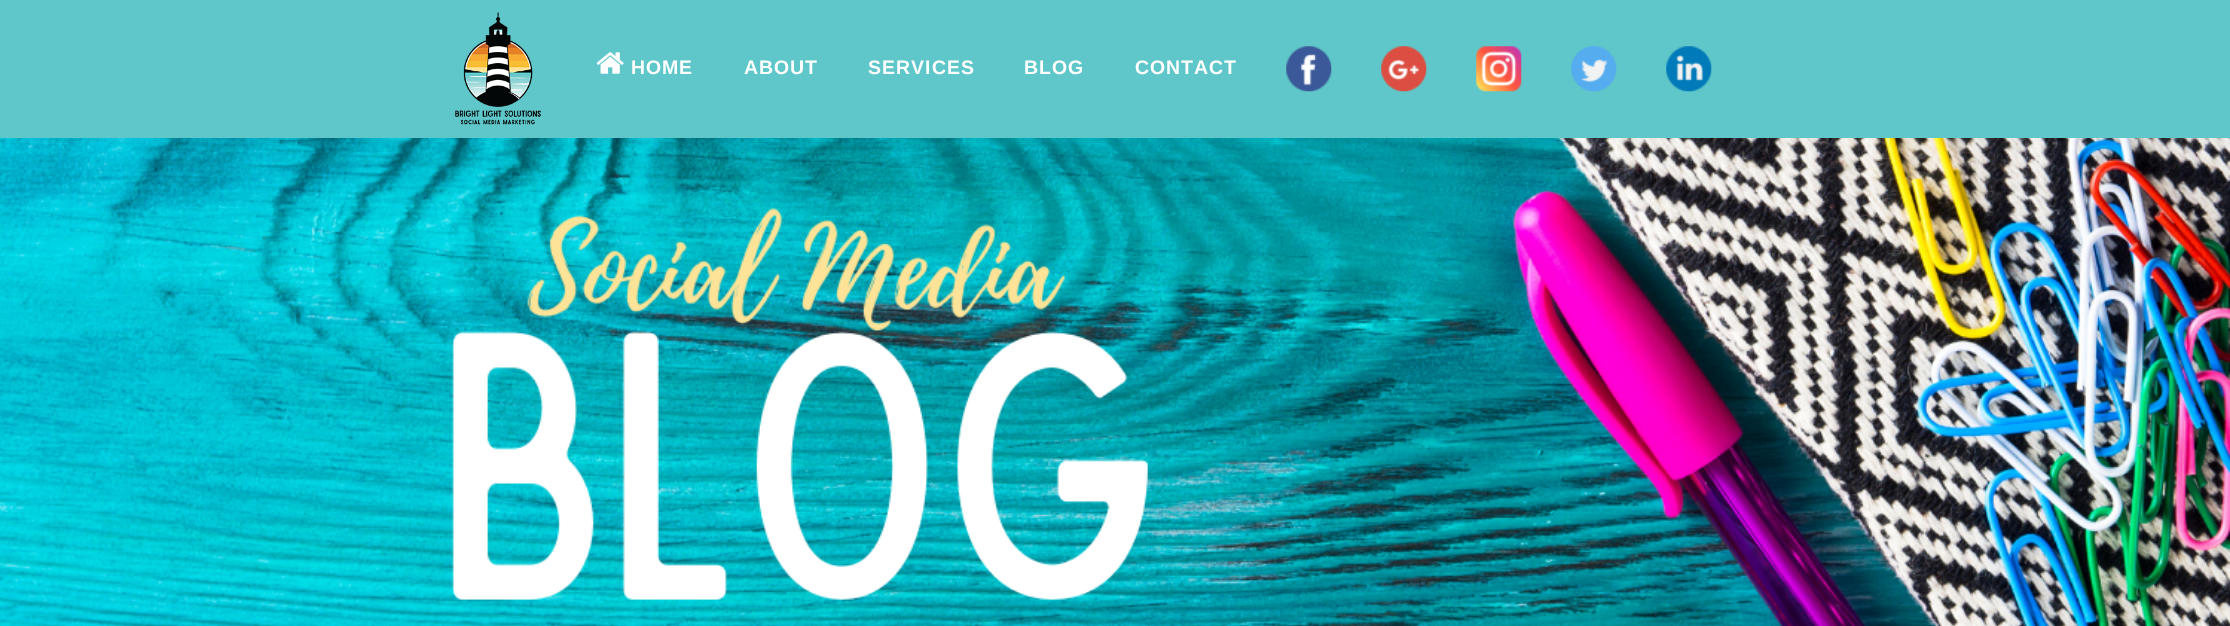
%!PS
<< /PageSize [2230 626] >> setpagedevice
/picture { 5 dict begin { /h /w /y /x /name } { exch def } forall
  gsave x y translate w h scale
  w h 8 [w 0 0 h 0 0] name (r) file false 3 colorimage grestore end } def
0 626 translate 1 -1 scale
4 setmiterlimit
1 setgray
0 0 2230 626 rectfill
0.373 0.78 0.788 setrgbcolor
0 0 2230 138 rectfill
(img1.rgb) 455 12 86 113 picture
(img2.rgb) 596 52 28 22 picture
/LiberationSans-Bold [19.5 0 0 -19.5 0 0] selectfont
1 setgray
631 74 moveto 1 0 (HOME) ashow
744 74 moveto 1 0 (ABOUT) ashow
868 74 moveto 1 0 (SERVICES) ashow
1024 74 moveto 1 0 (BLOG) ashow
1135 74 moveto 1 0 (CONTACT) ashow
(img3.rgb) 1286 46 46 46 picture
(img4.rgb) 1381 46 46 46 picture
(img5.rgb) 1476 46 46 46 picture
(img6.rgb) 1571 46 46 46 picture
(img7.rgb) 1666 46 46 46 picture
(img8.rgb) 0 138 2230 488 picture
showpage
